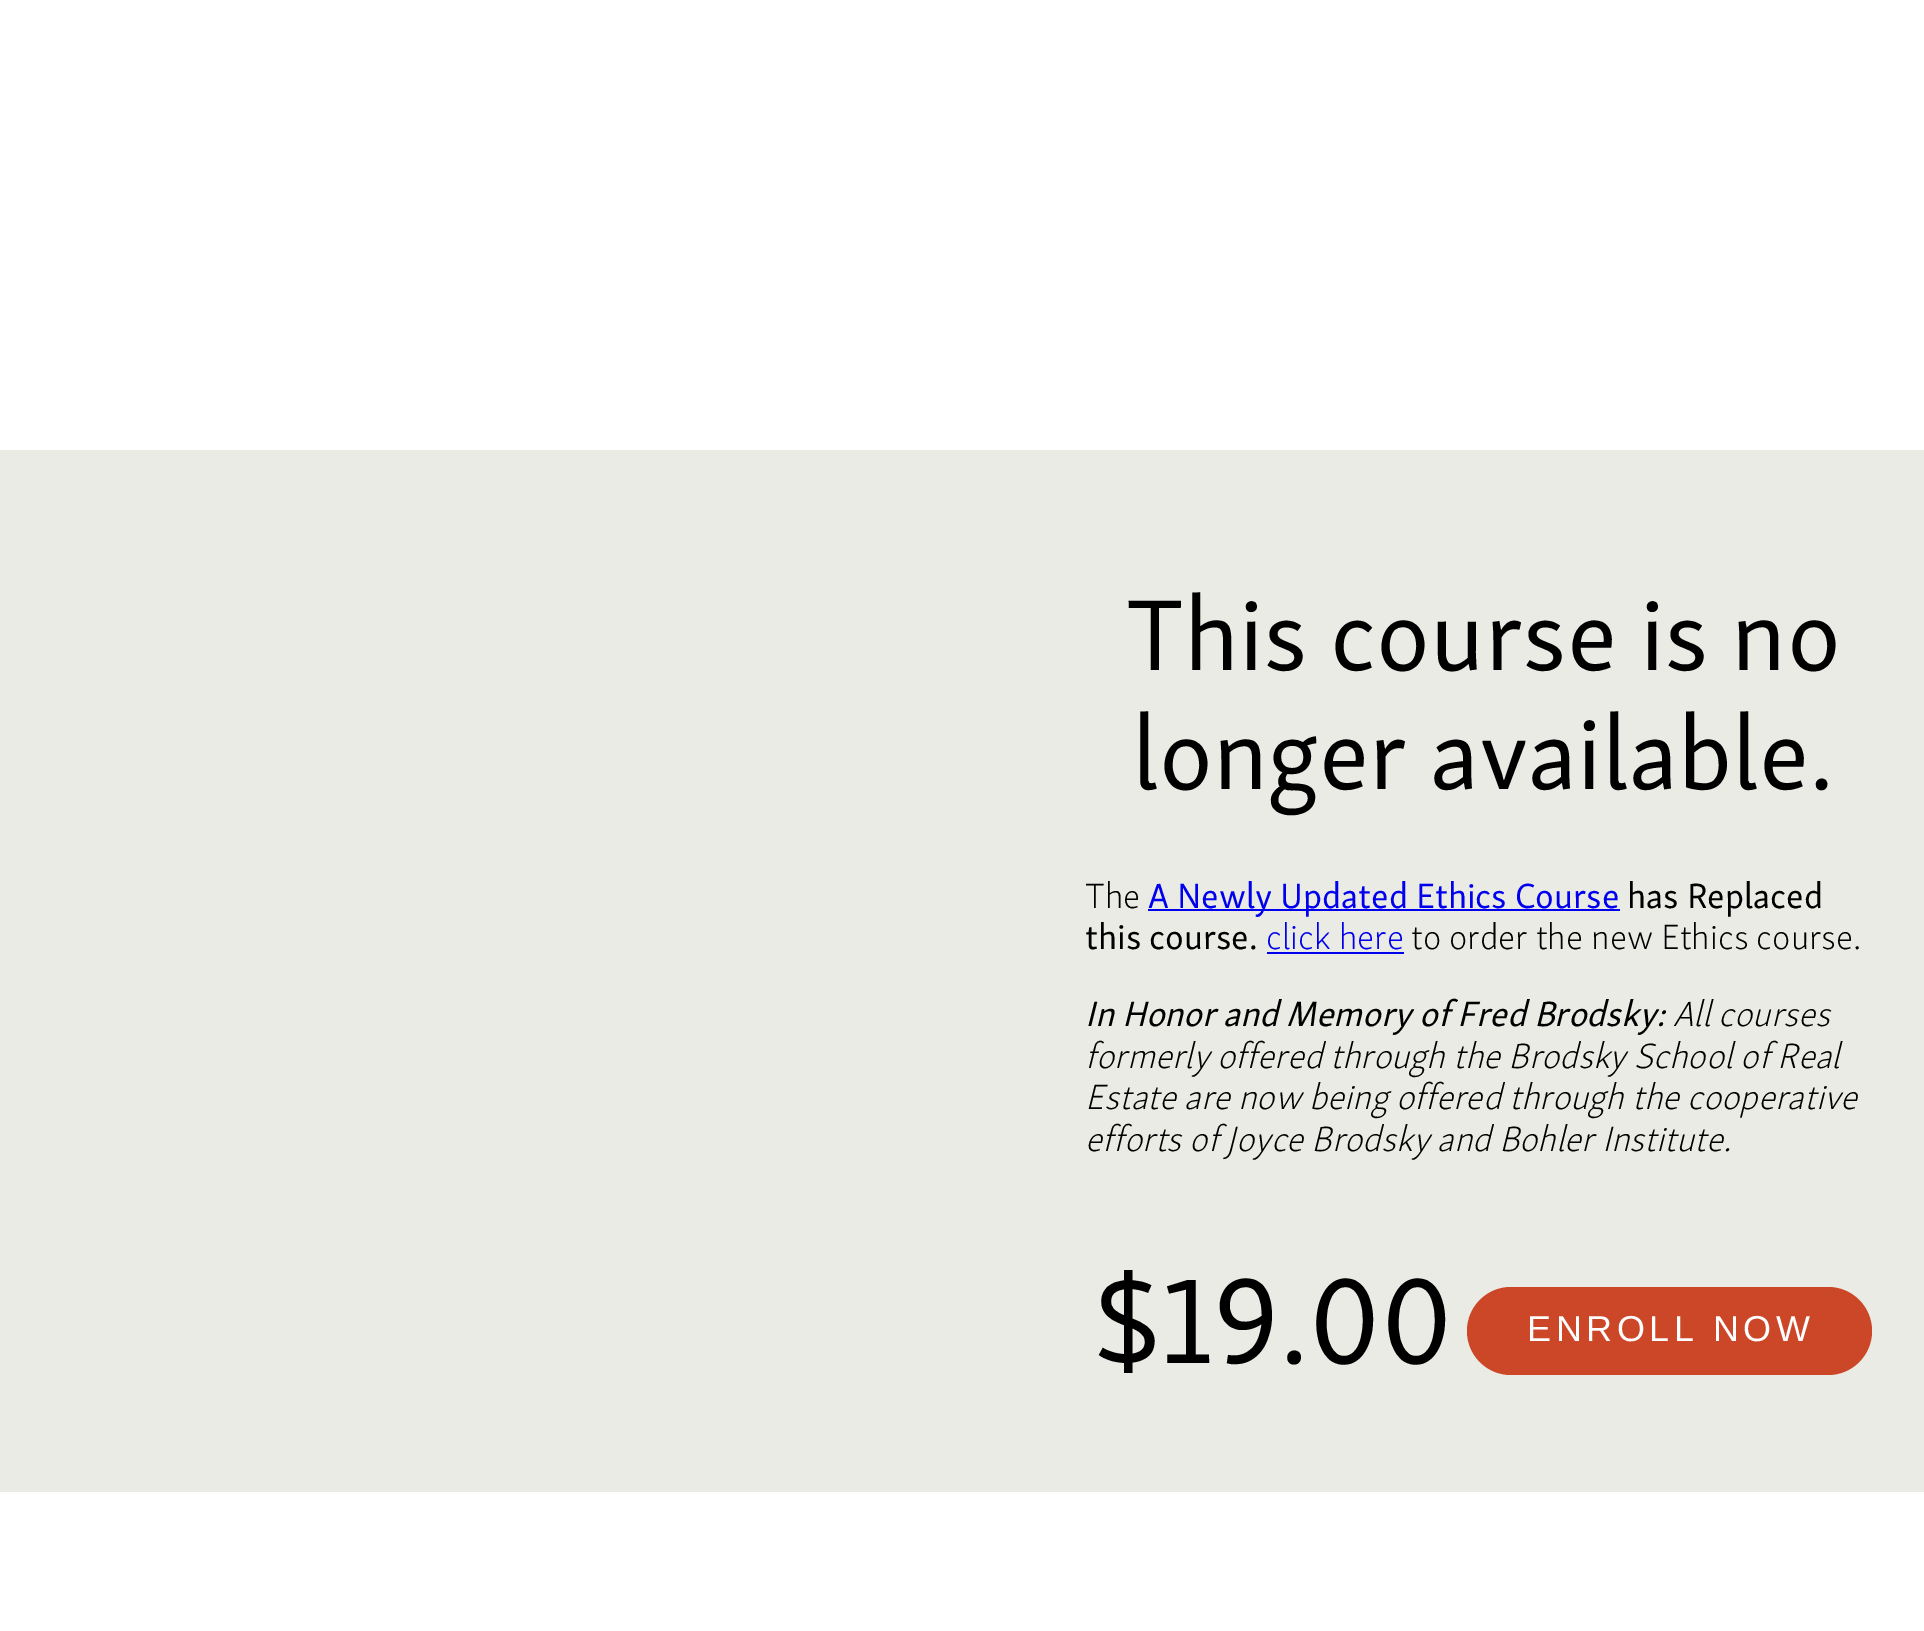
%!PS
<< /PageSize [1924 1631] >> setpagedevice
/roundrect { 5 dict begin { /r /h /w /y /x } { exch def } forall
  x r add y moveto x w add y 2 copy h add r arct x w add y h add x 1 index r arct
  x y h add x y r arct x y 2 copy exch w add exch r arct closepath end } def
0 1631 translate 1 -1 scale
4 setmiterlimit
0.922 0.922 0.898 setrgbcolor
0 0 1924 1631 rectfill
1 setgray
0 0 1924 450 rectfill
/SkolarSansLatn-Regular [103.5 0 0 -103.5 0 0] selectfont
0 setgray
1126 670 moveto (This course is no) show
1132 789 moveto (longer available.) show
/SkolarSansLatn-ExtraLight [36 0 0 -36 0 0] selectfont
1085 908 moveto (The) show
0 0 0.933 setrgbcolor
1148 909 472 2 rectfill
/SkolarSansLatn-Regular [36 0 0 -36 0 0] selectfont
1148 908 moveto (A Newly Updated Ethics Course) show
0 setgray
1627 908 moveto (has Replaced) show
1085 949 moveto (this course.) show
/SkolarSansLatn-ExtraLight [36 0 0 -36 0 0] selectfont
0 0 0.933 setrgbcolor
1266 949 moveto (click here) show
1267 952 137 2 rectfill
0 setgray
1411 949 moveto (to order the new Ethics course.) show
/SkolarSansLatn-Italic [36 0 0 -36 0 0] selectfont
1085 1026 moveto (In Honor and Memory of Fred Brodsky:) show
/SkolarSansLatn-ExtraLightItalic [36 0 0 -36 0 0] selectfont
1673 1026 moveto (All courses) show
1085 1068 moveto (formerly offered through the Brodsky School of Real) show
1085 1109 moveto (Estate are now being offered through the cooperative) show
1085 1151 moveto (efforts of Joyce Brodsky and Bohler Institute.) show
/SkolarSansLatn-Regular [124 0 0 -124 0 0] selectfont
1093 1363 moveto ($19.00) show
0.796 0.278 0.153 setrgbcolor
1467 1287 405 88 44 roundrect fill
/LiberationSans-Regular [36 0 0 -36 0 0] selectfont
1 setgray
1527 1341 moveto 4.5 0 (ENROLL NOW) ashow
0 1492 1924 139 rectfill
showpage
